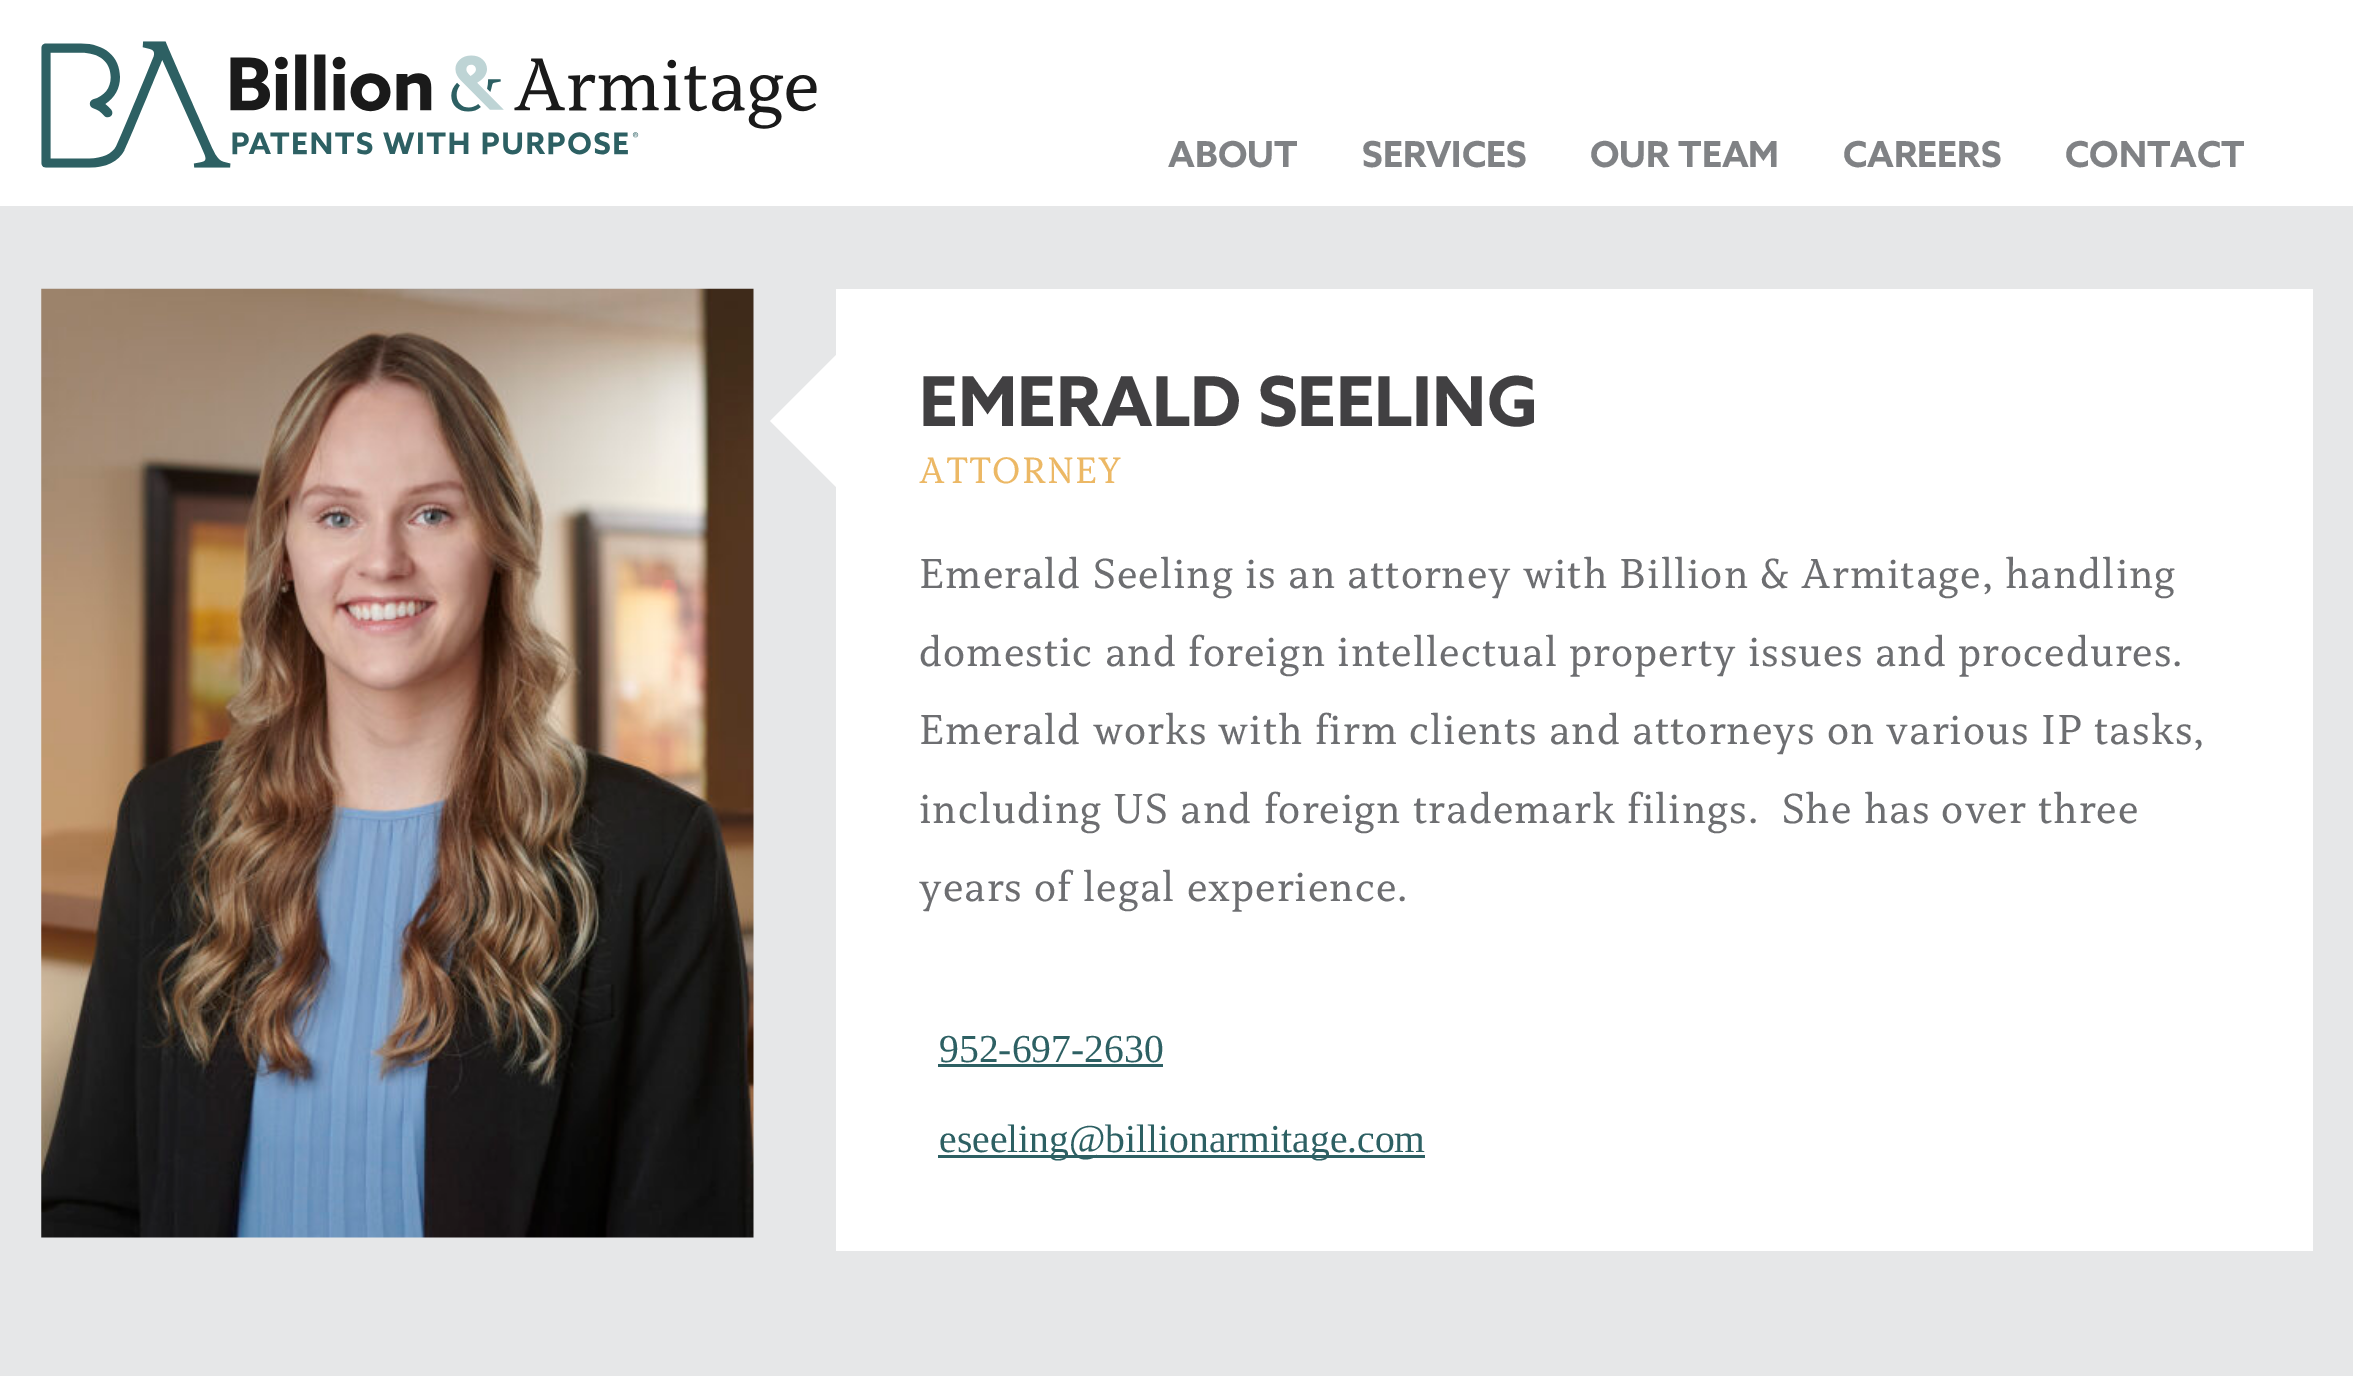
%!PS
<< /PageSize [2353 1376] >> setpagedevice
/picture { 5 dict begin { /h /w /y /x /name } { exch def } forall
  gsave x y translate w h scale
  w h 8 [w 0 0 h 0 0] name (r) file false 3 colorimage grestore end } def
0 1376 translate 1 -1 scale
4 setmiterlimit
0.902 0.906 0.91 setrgbcolor
0 0 2353 1376 rectfill
1 setgray
0 0 2353 206 rectfill
(img1.rgb) 41 41 776 127 picture
/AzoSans-Bold [35.75 0 0 -35.75 0 0] selectfont
0.502 0.51 0.522 setrgbcolor
1168 167 moveto (ABOUT) show
1362 167 moveto (SERVICES) show
1590 167 moveto (OUR TEAM) show
1843 167 moveto (CAREERS) show
2065 167 moveto (CONTACT) show
(img2.rgb) 41 288 713 950 picture
1 setgray
836 289 1477 962 rectfill
newpath 836 355 moveto 836 487 lineto 770 421 lineto closepath fill
/AzoSans-Bold [68.75 0 0 -68.75 0 0] selectfont
0.255 0.251 0.259 setrgbcolor
919 426 moveto (EMERALD SEELING) show
/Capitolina-Regular [38.5 0 0 -38.5 0 0] selectfont
0.925 0.722 0.396 setrgbcolor
919 483 moveto 1 0 (ATTORNEY) ashow
/Capitolina-Regular [44 0 0 -44 0 0] selectfont
0.427 0.431 0.443 setrgbcolor
919 588 moveto 1.1 0 (Emerald Seeling is an attorney with Billion & Armitage, handling) ashow
919 666 moveto 1.1 0 (domestic and foreign intellectual property issues and procedures.) ashow
919 744 moveto 1.1 0 (Emerald works with firm clients and attorneys on various IP tasks,) ashow
919 823 moveto 1.1 0 (including US and foreign trademark filings.  She has over three) ashow
919 901 moveto 1.1 0 (years of legal experience.) ashow
/LiberationSerif-Regular [39.6 0 0 -39.6 0 0] selectfont
0.176 0.376 0.388 setrgbcolor
939 1062 moveto (952-697-2630) show
938 1064 225 3 rectfill
938 1155 487 3 rectfill
939 1152 moveto (eseeling@billionarmitage.com) show
showpage
